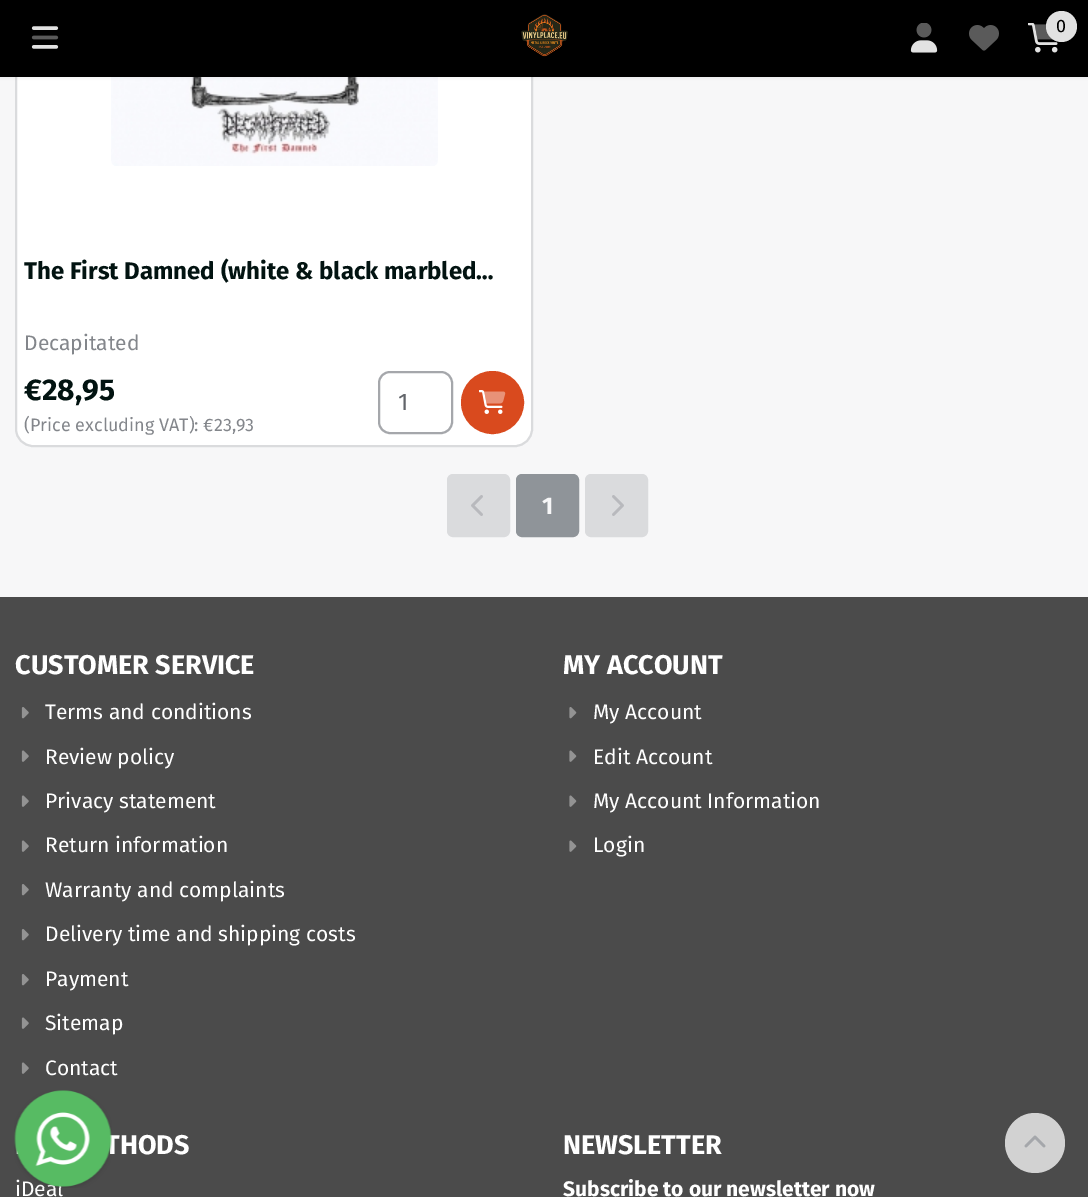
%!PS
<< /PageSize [1088 1197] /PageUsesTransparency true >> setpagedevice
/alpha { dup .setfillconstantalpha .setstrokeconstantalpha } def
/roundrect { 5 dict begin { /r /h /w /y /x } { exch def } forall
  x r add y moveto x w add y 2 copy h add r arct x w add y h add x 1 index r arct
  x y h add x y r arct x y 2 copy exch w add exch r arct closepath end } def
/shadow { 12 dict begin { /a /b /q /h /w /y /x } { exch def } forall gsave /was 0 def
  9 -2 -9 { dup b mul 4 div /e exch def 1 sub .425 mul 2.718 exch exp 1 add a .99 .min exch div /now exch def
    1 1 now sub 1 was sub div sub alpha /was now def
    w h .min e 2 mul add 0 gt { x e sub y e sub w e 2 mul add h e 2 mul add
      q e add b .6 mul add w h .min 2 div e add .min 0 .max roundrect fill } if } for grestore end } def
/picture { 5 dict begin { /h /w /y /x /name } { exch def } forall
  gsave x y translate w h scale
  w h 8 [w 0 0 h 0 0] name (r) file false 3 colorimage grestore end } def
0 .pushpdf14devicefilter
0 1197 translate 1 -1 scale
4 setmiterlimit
0.969 0.969 0.973 setrgbcolor
0 0 1088 1197 rectfill
1 setgray
16 -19 516 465 17 roundrect gsave fill grestore
0.855 0.859 0.867 setrgbcolor
2 setlinewidth
stroke
(img6.rgb) 111 77 327 89 picture
0 setgray
0 2 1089 76 0 1.5 0.05 shadow
0 0 1088 77 rectfill
(img1.rgb) 31 26 28 23 picture
(img2.rgb) 521 14 47 43 picture
(img3.rgb) 910 23 28 30 picture
(img4.rgb) 969 25 30 26 picture
(img5.rgb) 1028 23 30 30 picture
0.886 setgray
newpath 1061.5 26.5 15.5 0 360 arc closepath fill
/FiraSans-Regular [18 0 0 -18 0 0] selectfont
0 setgray
1056 32 moveto (0) show
/FiraSans-Bold [24 0 0 -24 0 0] selectfont
0.008 0.075 0.067 setrgbcolor
24 279 moveto (The First Damned \(white & black marbled…) show
/FiraSans-Regular [21 0 0 -21 0 0] selectfont
0.514 0.525 0.545 setrgbcolor
24 350 moveto (Decapitated) show
/FiraSans-Bold [30 0 0 -30 0 0] selectfont
0.008 0.075 0.067 setrgbcolor
24 400 moveto (€28,95) show
/FiraSans-Regular [18 0 0 -18 0 0] selectfont
0.514 0.525 0.545 setrgbcolor
24 431 moveto (\(Price excluding VAT\): €23,93) show
0.647 0.655 0.671 setrgbcolor
379 372 73 61 11 roundrect stroke
/FiraSans-Regular [24 0 0 -24 0 0] selectfont
0.384 0.396 0.416 setrgbcolor
398 410 moveto (1) show
0.851 0.29 0.118 setrgbcolor
newpath 492.5 402.5 30.5 0 360 arc closepath gsave fill grestore
stroke
(img7.rgb) 479 390 27 24 picture
0.855 0.859 0.867 setrgbcolor
448 475 61 61 5 roundrect gsave fill grestore
stroke
(img8.rgb) 471 495 12 21 picture
0.561 0.58 0.6 setrgbcolor
517 475 61 61 5 roundrect gsave fill grestore
stroke
/FiraSans-Bold [24 0 0 -24 0 0] selectfont
0.969 0.969 0.973 setrgbcolor
542 514 moveto (1) show
0.855 0.859 0.867 setrgbcolor
586 475 61 61 5 roundrect gsave fill grestore
stroke
(img9.rgb) 612 495 12 21 picture
0.294 setgray
0 597 1088 600 rectfill
/FiraSans-Bold [27 0 0 -27 0 0] selectfont
1 setgray
15 674 moveto (CUSTOMER SERVICE) show
(img10.rgb) 21 707 8 12 picture
/FiraSans-Regular [21 0 0 -21 0 0] selectfont
45 719 moveto (Terms and conditions) show
(img11.rgb) 21 750 8 12 picture
45 764 moveto (Review policy) show
(img11.rgb) 21 795 8 12 picture
45 808 moveto (Privacy statement) show
(img11.rgb) 21 840 8 12 picture
45 852 moveto (Return information) show
(img10.rgb) 21 884 8 12 picture
45 897 moveto (Warranty and complaints) show
(img10.rgb) 21 929 8 12 picture
45 941 moveto (Delivery time and shipping costs) show
(img10.rgb) 21 974 8 12 picture
45 986 moveto (Payment) show
(img11.rgb) 21 1017 8 12 picture
45 1030 moveto (Sitemap) show
(img11.rgb) 21 1062 8 12 picture
45 1075 moveto (Contact) show
/FiraSans-Bold [27 0 0 -27 0 0] selectfont
563 674 moveto (MY ACCOUNT) show
(img12.rgb) 569 707 8 12 picture
/FiraSans-Regular [21 0 0 -21 0 0] selectfont
593 719 moveto (My Account) show
(img13.rgb) 569 750 8 12 picture
593 764 moveto (Edit Account) show
(img13.rgb) 569 795 8 12 picture
593 808 moveto (My Account Information) show
(img13.rgb) 569 840 8 12 picture
593 852 moveto (Login) show
/FiraSans-Bold [27 0 0 -27 0 0] selectfont
105 1154 moveto (THODS) show
/FiraSans-Regular [21 0 0 -21 0 0] selectfont
15 1196 moveto (iDeal) show
/FiraSans-Bold [27 0 0 -27 0 0] selectfont
563 1154 moveto (NEWSLETTER) show
/FiraSans-Bold [21 0 0 -21 0 0] selectfont
563 1196 moveto (Subscribe to our newsletter now) show
(img14.rgb) 14 1090 98 98 picture
0.824 setgray
newpath 1035 1143 30 0 360 arc closepath fill
(img15.rgb) 1024 1135 22 13 picture
.poppdf14devicefilter showpage
